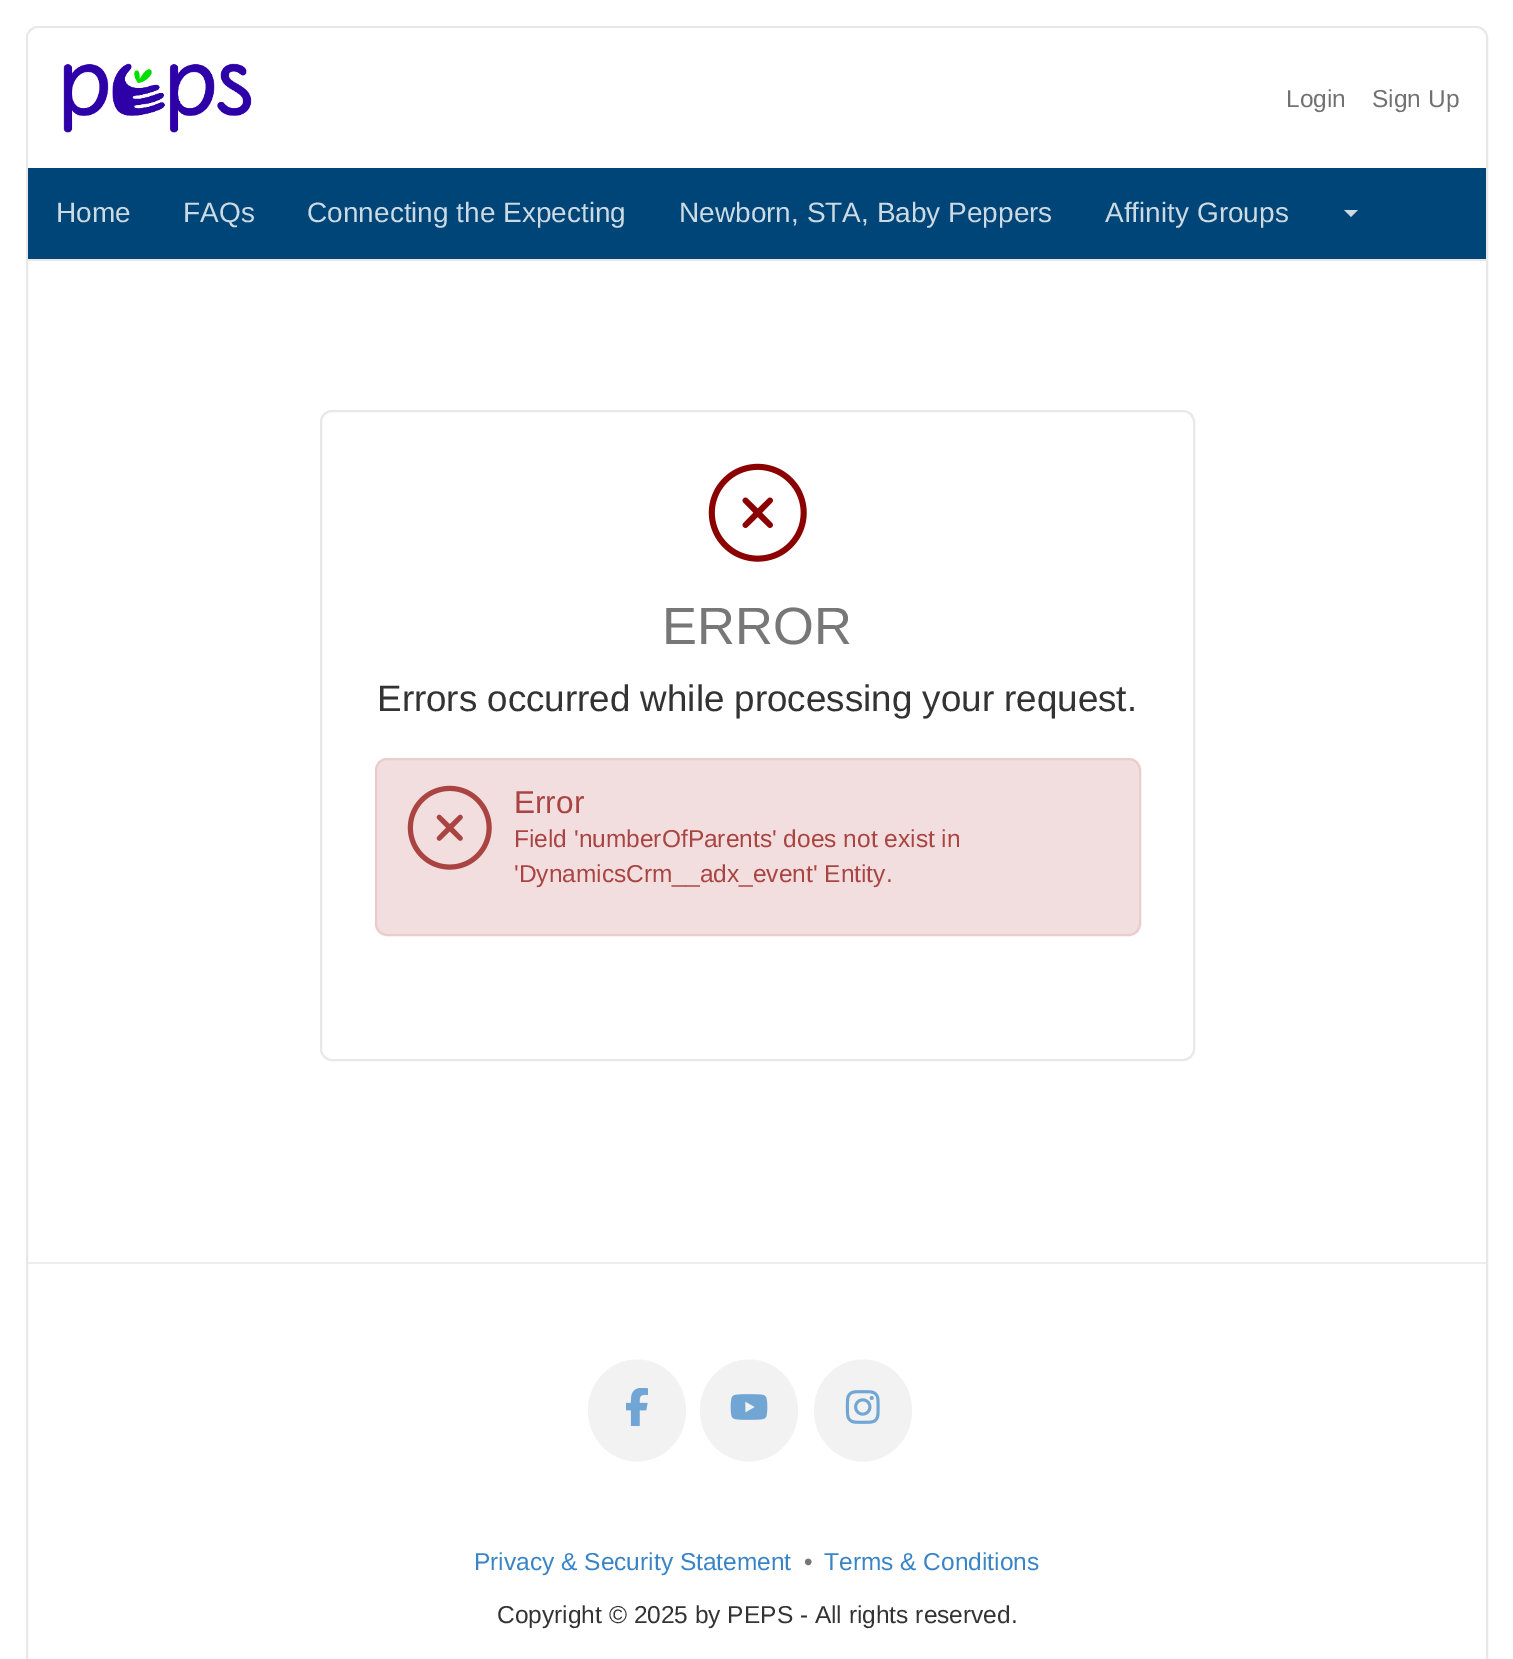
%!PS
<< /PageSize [1513 1659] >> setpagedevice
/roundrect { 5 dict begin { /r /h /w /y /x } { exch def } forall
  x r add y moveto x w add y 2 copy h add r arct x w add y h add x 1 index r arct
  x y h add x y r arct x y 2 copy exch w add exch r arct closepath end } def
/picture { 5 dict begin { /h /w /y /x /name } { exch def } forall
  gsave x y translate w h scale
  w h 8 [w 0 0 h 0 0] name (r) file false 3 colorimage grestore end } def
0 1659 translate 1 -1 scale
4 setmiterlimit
1 setgray
0 0 1513 1659 rectfill
0.91 setgray
2 setlinewidth
27 27 1460 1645 11 roundrect stroke
1 setgray
newpath 39 28 moveto 1475 28 lineto 1481 28 1486 33 1486 39 curveto 1486 261 lineto 28 261 lineto 28 39 lineto 28 33 33 28 39 28 curveto closepath fill
(img1.rgb) 63 63 189 70 picture
/LiberationSans-Regular [24.5 0 0 -24.5 0 0] selectfont
0.443 setgray
1286 107 moveto (Login) show
1372 107 moveto (Sign Up) show
0 0.271 0.467 setrgbcolor
28 168 1458 91 rectfill
0.91 setgray
28 259 1458 2 rectfill
/LiberationSans-Regular [28 0 0 -28 0 0] selectfont
0.8 0.855 0.894 setrgbcolor
56 222 moveto (Home) show
183 222 moveto (FAQs) show
307 222 moveto (Connecting the Expecting) show
679 222 moveto (Newborn, STA, Baby Peppers) show
1105 222 moveto (Affinity Groups) show
newpath 1344 210 moveto 1358 210 lineto 1351 217 lineto closepath fill
0.91 setgray
321 411 873 649 11 roundrect stroke
(img2.rgb) 708 463 99 99 picture
/LiberationSans-Regular [52.5 0 0 -52.5 0 0] selectfont
0.467 setgray
662 644 moveto (ERROR) show
/LiberationSans-Regular [36.75 0 0 -36.75 0 0] selectfont
0.2 setgray
377 711 moveto (Errors occurred while processing your request.) show
0.949 0.871 0.871 setrgbcolor
376 759 764 176 11 roundrect gsave fill grestore
0.922 0.8 0.8 setrgbcolor
stroke
(img3.rgb) 407 785 85 85 picture
/LiberationSans-Regular [31.5 0 0 -31.5 0 0] selectfont
0.663 0.267 0.259 setrgbcolor
514 813 moveto (Error) show
/LiberationSans-Regular [24.5 0 0 -24.5 0 0] selectfont
514 847 moveto (Field 'numberOfParents' does not exist in) show
514 882 moveto ('DynamicsCrm__adx_event' Entity.) show
0.929 setgray
28 1262 1458 2 rectfill
0.949 setgray
newpath 637 1359.5 moveto 664 1359.5 686 1382.5 686 1410.5 curveto 686 1438.5 664 1461.5 637 1461.5 curveto 610 1461.5 588 1438.5 588 1410.5 curveto 588 1382.5 610 1359.5 637 1359.5 curveto closepath fill
(img4.rgb) 626 1388 22 38 picture
newpath 749 1359.5 moveto 776 1359.5 798 1382.5 798 1410.5 curveto 798 1438.5 776 1461.5 749 1461.5 curveto 722 1461.5 700 1438.5 700 1410.5 curveto 700 1382.5 722 1359.5 749 1359.5 curveto closepath fill
(img5.rgb) 730 1394 38 26 picture
newpath 863 1359.5 moveto 890 1359.5 912 1382.5 912 1410.5 curveto 912 1438.5 890 1461.5 863 1461.5 curveto 836 1461.5 814 1438.5 814 1410.5 curveto 814 1382.5 836 1359.5 863 1359.5 curveto closepath fill
(img6.rgb) 845 1390 35 34 picture
0.22 0.518 0.78 setrgbcolor
474 1570 moveto (Privacy & Security Statement) show
0.467 setgray
804 1570 moveto (•) show
0.22 0.518 0.78 setrgbcolor
824 1570 moveto (Terms & Conditions) show
0.2 setgray
497 1623 moveto (Copyright © 2025 by PEPS - All rights reserved.) show
showpage
